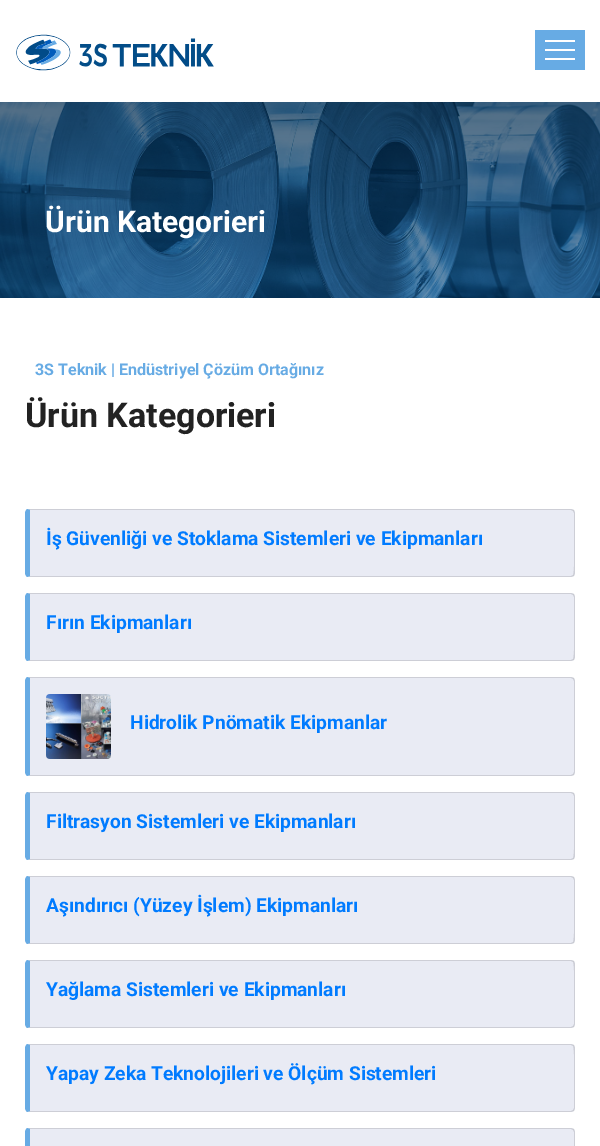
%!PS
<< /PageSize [600 1146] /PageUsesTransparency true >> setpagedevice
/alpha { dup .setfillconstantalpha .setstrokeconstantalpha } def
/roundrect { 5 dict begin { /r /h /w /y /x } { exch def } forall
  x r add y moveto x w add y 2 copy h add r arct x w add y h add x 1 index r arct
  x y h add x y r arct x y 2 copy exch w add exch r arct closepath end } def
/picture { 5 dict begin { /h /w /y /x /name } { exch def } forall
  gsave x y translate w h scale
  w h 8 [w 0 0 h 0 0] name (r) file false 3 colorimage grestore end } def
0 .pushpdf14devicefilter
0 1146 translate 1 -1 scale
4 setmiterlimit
1 setgray
0 0 600 1146 rectfill
(img1.rgb) 16 34 198 37 picture
0.404 0.671 0.894 setrgbcolor
535 30 50 40 rectfill
1 setgray
545 40 30 2 rectfill
545 49 30 2 rectfill
545 58 30 2 rectfill
(img2.rgb) 0 102 600 196 picture
/Roboto-Bold [30 0 0 -30 0 0] selectfont
45 232 moveto (Ürün Kategorieri) show
/Roboto-Bold [16 0 0 -16 0 0] selectfont
0.404 0.671 0.894 setrgbcolor
35 375 moveto (3S Teknik | Endüstriyel Çözüm Ortağınız) show
/Roboto-Bold [34 0 0 -34 0 0] selectfont
0.133 setgray
25 427 moveto (Ürün Kategorieri) show
0.914 0.922 0.957 setrgbcolor
25 509 550 68 4 roundrect fill
0.12 alpha
0 setgray
newpath 29 509 moveto 27 509 lineto 30 510 lineto 571 510 lineto 573 511 lineto 574 510 lineto 571 509 lineto closepath fill
newpath 575 573 moveto 575 513 lineto 574 510 lineto 573 511 lineto 574 513 lineto 574 523 lineto 574 529 575 573 573 575 curveto 574 576 lineto closepath fill
newpath 29 577 moveto 571 577 lineto 574 576 lineto 573 575 lineto 571 576 lineto 30 576 lineto 27 577 lineto closepath fill
1 alpha
0.404 0.671 0.894 setrgbcolor
newpath 30 510 moveto 27 509 lineto 26 510 25 512 25 513 curveto 25 573 lineto 25 574 26 576 27 577 curveto 30 576 lineto closepath fill
/Roboto-Bold [19.2 0 0 -19.2 0 0] selectfont
0 0.482 1 setrgbcolor
46 545 moveto (İş Güvenliği ve Stoklama Sistemleri ve Ekipmanları) show
0.914 0.922 0.957 setrgbcolor
25 593 550 68 4 roundrect fill
0.12 alpha
0 setgray
newpath 29 593 moveto 27 593 lineto 30 594 lineto 571 594 lineto 573 595 lineto 574 594 lineto 571 593 lineto closepath fill
newpath 575 657 moveto 575 597 lineto 574 594 lineto 573 595 lineto 574 597 lineto 574 607 lineto 574 613 575 657 573 659 curveto 574 660 lineto closepath fill
newpath 29 661 moveto 571 661 lineto 574 660 lineto 573 659 lineto 571 660 lineto 30 660 lineto 27 661 lineto closepath fill
1 alpha
0.404 0.671 0.894 setrgbcolor
newpath 30 594 moveto 27 593 lineto 26 594 25 596 25 597 curveto 25 657 lineto 25 658 26 660 27 661 curveto 30 660 lineto closepath fill
0 0.482 1 setrgbcolor
46 629 moveto (Fırın Ekipmanları) show
0.914 0.922 0.957 setrgbcolor
25 677 550 99 4 roundrect fill
0.12 alpha
0 setgray
newpath 29 677 moveto 27 677 lineto 30 678 lineto 571 678 lineto 573 679 lineto 574 678 lineto 571 677 lineto closepath fill
newpath 575 772 moveto 575 681 lineto 574 678 lineto 573 679 lineto 574 681 lineto 574 772 lineto 573 774 lineto 574 775 lineto closepath fill
newpath 29 776 moveto 571 776 lineto 574 775 lineto 573 774 lineto 571 775 lineto 30 775 lineto 27 776 lineto closepath fill
1 alpha
0.404 0.671 0.894 setrgbcolor
newpath 30 678 moveto 27 677 lineto 26 678 25 680 25 681 curveto 25 772 lineto 25 773 26 775 27 776 curveto 30 775 lineto closepath fill
(img3.rgb) 46 694 65 65 picture
0 0.482 1 setrgbcolor
130 729 moveto (Hidrolik Pnömatik Ekipmanlar) show
0.914 0.922 0.957 setrgbcolor
25 792 550 68 4 roundrect fill
0.12 alpha
0 setgray
newpath 29 792 moveto 27 792 lineto 30 793 lineto 571 793 lineto 573 794 lineto 574 793 lineto 571 792 lineto closepath fill
newpath 575 856 moveto 575 796 lineto 574 793 lineto 573 794 lineto 574 796 lineto 574 806 lineto 574 812 575 856 573 858 curveto 574 859 lineto closepath fill
newpath 29 860 moveto 571 860 lineto 574 859 lineto 573 858 lineto 571 859 lineto 30 859 lineto 27 860 lineto closepath fill
1 alpha
0.404 0.671 0.894 setrgbcolor
newpath 30 793 moveto 27 792 lineto 26 793 25 795 25 796 curveto 25 856 lineto 25 857 26 859 27 860 curveto 30 859 lineto closepath fill
0 0.482 1 setrgbcolor
46 828 moveto (Filtrasyon Sistemleri ve Ekipmanları) show
0.914 0.922 0.957 setrgbcolor
25 876 550 68 4 roundrect fill
0.12 alpha
0 setgray
newpath 29 876 moveto 27 876 lineto 30 877 lineto 571 877 lineto 573 878 lineto 574 877 lineto 571 876 lineto closepath fill
newpath 575 940 moveto 575 880 lineto 574 877 lineto 573 878 lineto 574 880 lineto 574 890 lineto 574 896 575 940 573 942 curveto 574 943 lineto closepath fill
newpath 29 944 moveto 571 944 lineto 574 943 lineto 573 942 lineto 571 943 lineto 30 943 lineto 27 944 lineto closepath fill
1 alpha
0.404 0.671 0.894 setrgbcolor
newpath 30 877 moveto 27 876 lineto 26 877 25 879 25 880 curveto 25 940 lineto 25 941 26 943 27 944 curveto 30 943 lineto closepath fill
0 0.482 1 setrgbcolor
46 912 moveto (Aşındırıcı \(Yüzey İşlem\) Ekipmanları) show
0.914 0.922 0.957 setrgbcolor
25 960 550 68 4 roundrect fill
0.12 alpha
0 setgray
newpath 29 960 moveto 27 960 lineto 30 961 lineto 571 961 lineto 573 962 lineto 574 961 lineto 571 960 lineto closepath fill
newpath 575 1024 moveto 575 964 lineto 574 961 lineto 573 962 lineto 575 964 574 1008 574 1014 curveto 574 1024 lineto 573 1026 lineto 574 1027 lineto closepath fill
newpath 29 1028 moveto 571 1028 lineto 574 1027 lineto 573 1026 lineto 571 1027 lineto 30 1027 lineto 27 1028 lineto closepath fill
1 alpha
0.404 0.671 0.894 setrgbcolor
newpath 30 961 moveto 27 960 lineto 26 961 25 963 25 964 curveto 25 1024 lineto 25 1025 26 1027 27 1028 curveto 30 1027 lineto closepath fill
0 0.482 1 setrgbcolor
46 996 moveto (Yağlama Sistemleri ve Ekipmanları) show
0.914 0.922 0.957 setrgbcolor
25 1044 550 68 4 roundrect fill
0.12 alpha
0 setgray
newpath 29 1044 moveto 27 1044 lineto 30 1045 lineto 571 1045 lineto 573 1046 lineto 574 1045 lineto 571 1044 lineto closepath fill
newpath 575 1108 moveto 575 1048 lineto 574 1045 lineto 573 1046 lineto 575 1048 574 1092 574 1098 curveto 574 1108 lineto 573 1110 lineto 574 1111 lineto closepath fill
newpath 29 1112 moveto 571 1112 lineto 574 1111 lineto 573 1110 lineto 571 1111 lineto 30 1111 lineto 27 1112 lineto closepath fill
1 alpha
0.404 0.671 0.894 setrgbcolor
newpath 30 1045 moveto 27 1044 lineto 26 1045 25 1047 25 1048 curveto 25 1108 lineto 25 1109 26 1111 27 1112 curveto 30 1111 lineto closepath fill
0 0.482 1 setrgbcolor
46 1080 moveto (Yapay Zeka Teknolojileri ve Ölçüm Sistemleri) show
0.914 0.922 0.957 setrgbcolor
25 1128 550 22 4 roundrect fill
0.12 alpha
0 setgray
newpath 29 1128 moveto 27 1128 lineto 30 1129 lineto 571 1129 lineto 573 1130 lineto 574 1129 lineto 571 1128 lineto closepath fill
newpath 575 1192 moveto 575 1132 lineto 574 1129 lineto 573 1130 lineto 574 1132 lineto 574 1142 lineto 574 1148 575 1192 573 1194 curveto 574 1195 lineto closepath fill
1 alpha
0.404 0.671 0.894 setrgbcolor
newpath 30 1129 moveto 27 1128 lineto 26 1129 25 1131 25 1132 curveto 25 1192 lineto 25 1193 26 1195 27 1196 curveto 30 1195 lineto closepath fill
.poppdf14devicefilter showpage
